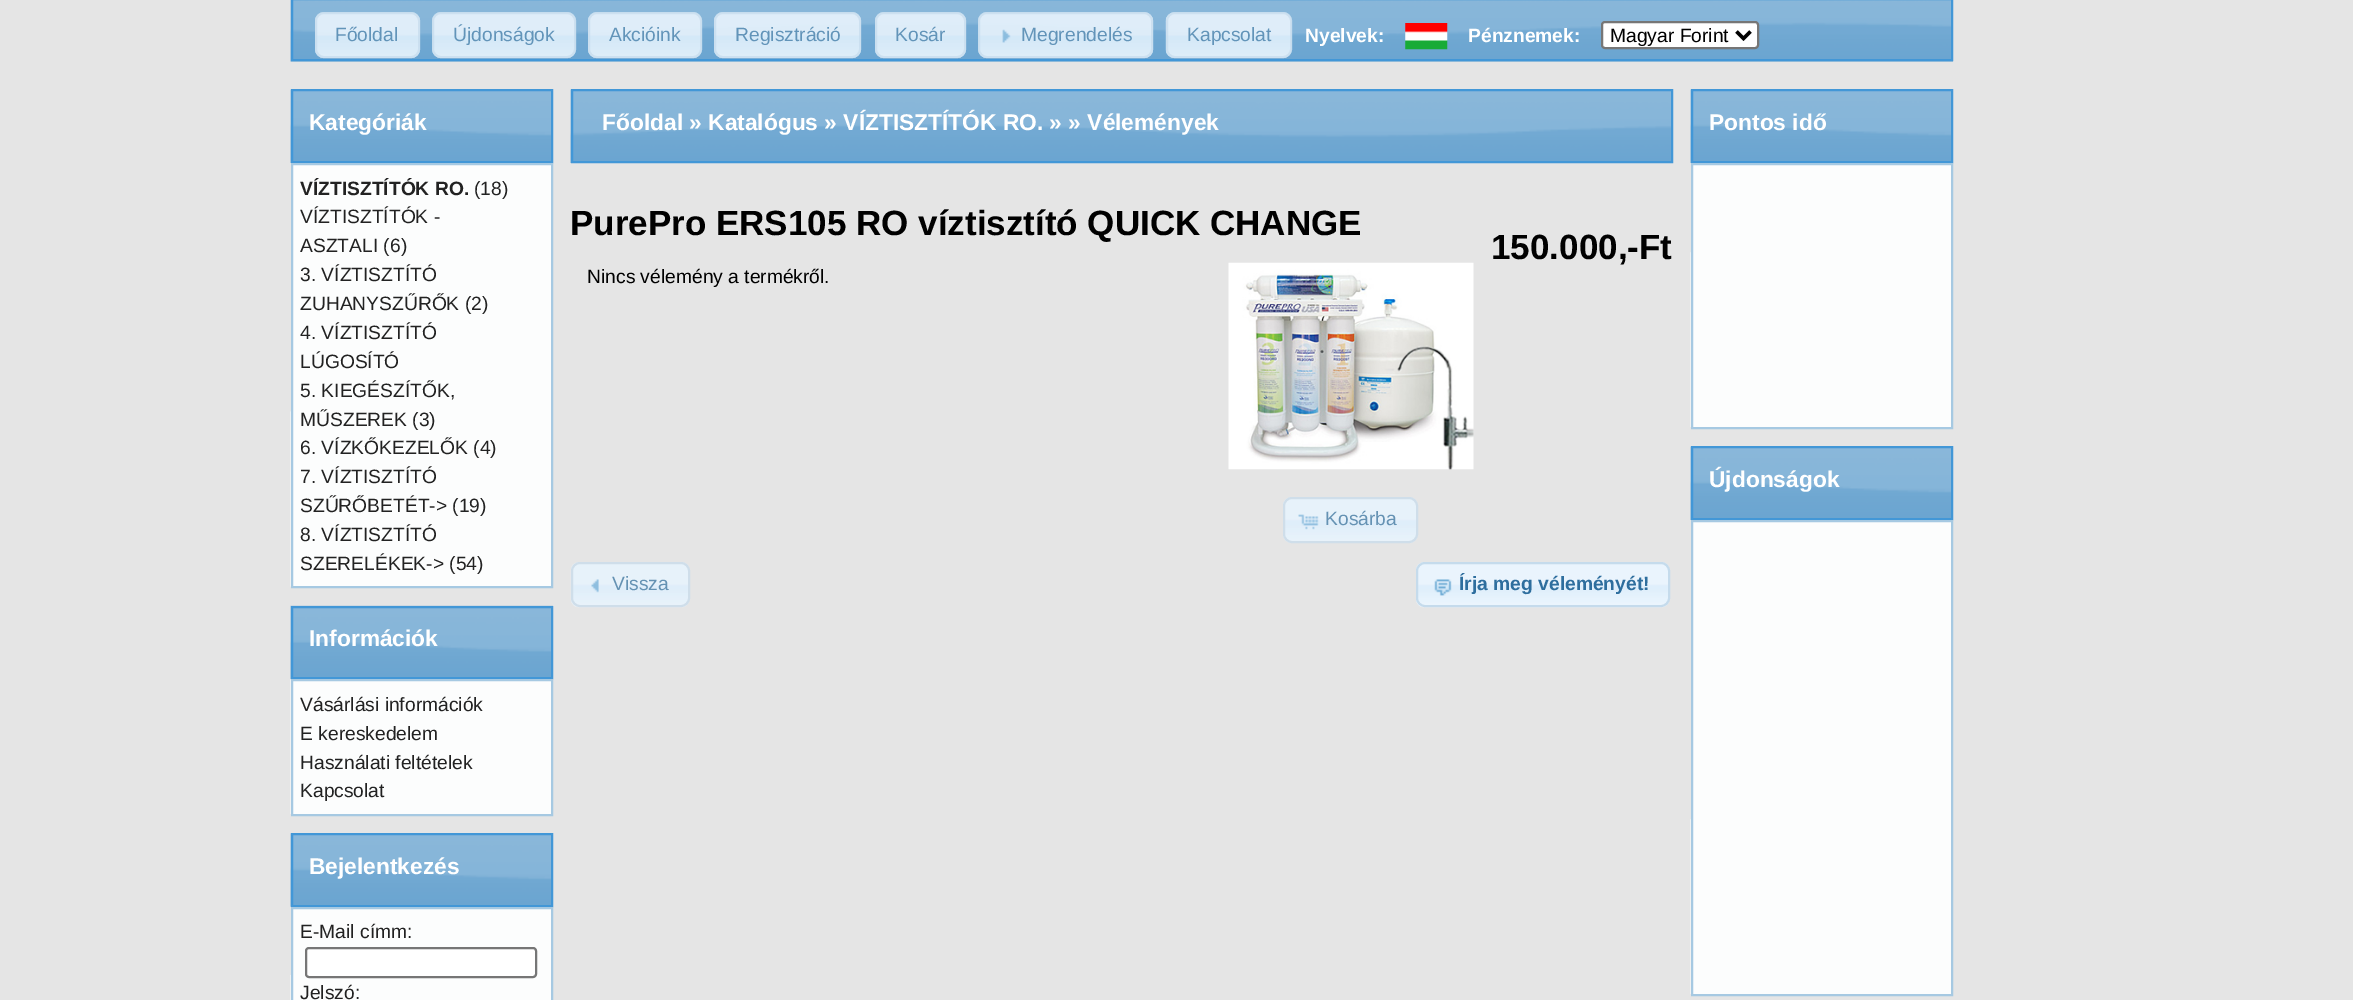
%!PS
<< /PageSize [2353 1000] /PageUsesTransparency true >> setpagedevice
/alpha { dup .setfillconstantalpha .setstrokeconstantalpha } def
/roundrect { 5 dict begin { /r /h /w /y /x } { exch def } forall
  x r add y moveto x w add y 2 copy h add r arct x w add y h add x 1 index r arct
  x y h add x y r arct x y 2 copy exch w add exch r arct closepath end } def
/picture { 5 dict begin { /h /w /y /x /name } { exch def } forall
  gsave x y translate w h scale
  w h 8 [w 0 0 h 0 0] name (r) file false 3 colorimage grestore end } def
0 .pushpdf14devicefilter
0 1000 translate 1 -1 scale
4 setmiterlimit
0.898 setgray
0 0 2353 1000 rectfill
(img1.rgb) 290 0 1663 62 picture
0.259 0.592 0.843 setrgbcolor
2 setlinewidth
292 -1 1660 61 rectstroke
0.7 alpha
0.875 0.937 0.988 setrgbcolor
315 12 105 46 9 roundrect fill
1 alpha
(img2.rgb) 315 12 105 46 picture
0.7 alpha
0.773 0.859 0.925 setrgbcolor
316 13 103 44 8 roundrect stroke
/LiberationSans-Regular [19.25 0 0 -19.25 0 0] selectfont
1 alpha
0.384 0.58 0.725 setrgbcolor
335 41 moveto (Főoldal) show
0.7 alpha
0.875 0.937 0.988 setrgbcolor
432 12 144 46 9 roundrect fill
1 alpha
(img3.rgb) 432 12 144 46 picture
0.7 alpha
0.773 0.859 0.925 setrgbcolor
433 13 142 44 8 roundrect stroke
1 alpha
0.384 0.58 0.725 setrgbcolor
453 41 moveto (Újdonságok) show
0.7 alpha
0.875 0.937 0.988 setrgbcolor
588 12 114 46 9 roundrect fill
1 alpha
(img4.rgb) 588 12 114 46 picture
0.7 alpha
0.773 0.859 0.925 setrgbcolor
589 13 112 44 8 roundrect stroke
1 alpha
0.384 0.58 0.725 setrgbcolor
609 41 moveto (Akcióink) show
0.7 alpha
0.875 0.937 0.988 setrgbcolor
714 12 147 46 9 roundrect fill
1 alpha
(img5.rgb) 714 12 147 46 picture
0.7 alpha
0.773 0.859 0.925 setrgbcolor
715 13 145 44 8 roundrect stroke
1 alpha
0.384 0.58 0.725 setrgbcolor
735 41 moveto (Regisztráció) show
0.7 alpha
0.875 0.937 0.988 setrgbcolor
875 12 91 46 9 roundrect fill
1 alpha
(img6.rgb) 875 12 91 46 picture
0.7 alpha
0.773 0.859 0.925 setrgbcolor
876 13 89 44 8 roundrect stroke
1 alpha
0.384 0.58 0.725 setrgbcolor
895 41 moveto (Kosár) show
0.7 alpha
0.875 0.937 0.988 setrgbcolor
978 12 175 46 9 roundrect fill
1 alpha
(img7.rgb) 978 12 176 46 picture
0.7 alpha
0.773 0.859 0.925 setrgbcolor
979 13 173 44 8 roundrect stroke
1 alpha
(img8.rgb) 1002 29 9 14 picture
0.384 0.58 0.725 setrgbcolor
1021 41 moveto (Megrendelés) show
0.7 alpha
0.875 0.937 0.988 setrgbcolor
1166 12 126 46 9 roundrect fill
1 alpha
(img9.rgb) 1165 12 127 46 picture
0.7 alpha
0.773 0.859 0.925 setrgbcolor
1167 13 124 44 8 roundrect stroke
1 alpha
0.384 0.58 0.725 setrgbcolor
1187 41 moveto (Kapcsolat) show
/LiberationSans-Bold [19.25 0 0 -19.25 0 0] selectfont
1 setgray
1305 42 moveto (Nyelvek:) show
(img10.rgb) 1405 23 43 27 picture
1468 42 moveto (Pénznemek:) show
1602 22 156 26 3 roundrect gsave fill grestore
0.463 setgray
stroke
0 setgray
3.5 setlinewidth
newpath 1736.5 31.5 moveto 1743.5 38.5 lineto 1750.5 31.5 lineto stroke
/LiberationSans-Regular [19.25 0 0 -19.25 0 0] selectfont
1610 42 moveto (Magyar Forint) show
(img11.rgb) 290 89 261 74 picture
0.259 0.592 0.843 setrgbcolor
2 setlinewidth
292 90 260 72 rectstroke
/LiberationSans-Bold [22.75 0 0 -22.75 0 0] selectfont
1 setgray
309 130 moveto (Kategóriák) show
0.988 0.992 0.992 setrgbcolor
newpath 292 164 moveto 552 164 lineto 552 587 lineto 292 587 lineto closepath gsave fill grestore
0.651 0.788 0.886 setrgbcolor
stroke
(img12.rgb) 290 411 1 176 picture
/LiberationSans-Bold [19.25 0 0 -19.25 0 0] selectfont
0.133 setgray
300 195 moveto (VÍZTISZTÍTÓK RO.) show
/LiberationSans-Regular [19.25 0 0 -19.25 0 0] selectfont
474 195 moveto (\(18\)) show
300 223 moveto (VÍZTISZTÍTÓK -) show
300 252 moveto (ASZTALI \(6\)) show
300 281 moveto (3. VÍZTISZTÍTÓ) show
300 310 moveto (ZUHANYSZŰRŐK \(2\)) show
300 339 moveto (4. VÍZTISZTÍTÓ) show
300 368 moveto (LÚGOSÍTÓ) show
300 397 moveto (5. KIEGÉSZÍTŐK,) show
300 426 moveto (MŰSZEREK \(3\)) show
300 454 moveto (6. VÍZKŐKEZELŐK \(4\)) show
300 483 moveto (7. VÍZTISZTÍTÓ) show
300 512 moveto (SZŰRŐBETÉT-> \(19\)) show
300 541 moveto (8. VÍZTISZTÍTÓ) show
300 570 moveto (SZERELÉKEK-> \(54\)) show
(img13.rgb) 290 605 263 75 picture
0.259 0.592 0.843 setrgbcolor
292 607 260 71 rectstroke
/LiberationSans-Bold [22.75 0 0 -22.75 0 0] selectfont
1 setgray
309 646 moveto (Információk) show
0.988 0.992 0.992 setrgbcolor
newpath 292 680 moveto 552 680 lineto 552 815 lineto 292 815 lineto closepath gsave fill grestore
0.651 0.788 0.886 setrgbcolor
stroke
(img14.rgb) 290 679 1 135 picture
/LiberationSans-Regular [19.25 0 0 -19.25 0 0] selectfont
0.133 setgray
300 711 moveto (Vásárlási információk) show
300 740 moveto (E kereskedelem) show
300 769 moveto (Használati feltételek) show
300 797 moveto (Kapcsolat) show
(img15.rgb) 290 833 261 74 picture
0.259 0.592 0.843 setrgbcolor
292 834 260 72 rectstroke
/LiberationSans-Bold [22.75 0 0 -22.75 0 0] selectfont
1 setgray
309 874 moveto (Bejelentkezés) show
0.988 0.992 0.992 setrgbcolor
newpath 292 908 moveto 552 908 lineto 552 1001 lineto 292 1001 lineto closepath gsave fill grestore
0.651 0.788 0.886 setrgbcolor
stroke
0.941 0.945 0.945 setrgbcolor
290 975 1 25 rectfill
/LiberationSans-Regular [19.25 0 0 -19.25 0 0] selectfont
0.133 setgray
300 938 moveto (E-Mail címm:) show
1 setgray
306 948 230 29 3 roundrect gsave fill grestore
0.463 setgray
stroke
0.133 setgray
300 999 moveto (Jelszó:) show
(img16.rgb) 570 89 1101 74 picture
0.259 0.592 0.843 setrgbcolor
572 90 1100 72 rectstroke
/LiberationSans-Bold [22.75 0 0 -22.75 0 0] selectfont
1 setgray
602 130 moveto (Főoldal » Katalógus » VÍZTISZTÍTÓK RO. » » Vélemények) show
/LiberationSans-Bold [35 0 0 -35 0 0] selectfont
0 setgray
570 235 moveto (PurePro ERS105 RO víztisztító QUICK CHANGE) show
1491 259 moveto (150.000,-Ft) show
/LiberationSans-Regular [19.25 0 0 -19.25 0 0] selectfont
587 283 moveto (Nincs vélemény a termékről.) show
(img17.rgb) 1228 262 246 208 picture
(img18.rgb) 1283 497 134 46 picture
0.812 0.871 0.918 setrgbcolor
1284 498 133 44 8 roundrect stroke
(img19.rgb) 1298 514 21 16 picture
0.396 0.573 0.702 setrgbcolor
1325 525 moveto (Kosárba) show
(img20.rgb) 570 562 119 46 picture
0.812 0.871 0.918 setrgbcolor
572 563 117 43 8 roundrect stroke
(img21.rgb) 591 579 8 14 picture
0.396 0.573 0.702 setrgbcolor
612 590 moveto (Vissza) show
(img22.rgb) 1416 562 253 46 picture
0.773 0.859 0.925 setrgbcolor
1417 563 252 43 8 roundrect stroke
(img23.rgb) 1434 579 18 17 picture
/LiberationSans-Bold [19.25 0 0 -19.25 0 0] selectfont
0.18 0.431 0.62 setrgbcolor
1459 590 moveto (Írja meg véleményét!) show
(img24.rgb) 1690 89 261 74 picture
0.259 0.592 0.843 setrgbcolor
1692 90 260 72 rectstroke
/LiberationSans-Bold [22.75 0 0 -22.75 0 0] selectfont
1 setgray
1709 130 moveto (Pontos idő) show
0.988 0.992 0.992 setrgbcolor
newpath 1692 164 moveto 1952 164 lineto 1952 428 lineto 1692 428 lineto closepath gsave fill grestore
0.651 0.788 0.886 setrgbcolor
stroke
(img25.rgb) 1690 252 1 175 picture
(img24.rgb) 1690 446 261 74 picture
0.259 0.592 0.843 setrgbcolor
1692 447 260 72 rectstroke
1 setgray
1709 487 moveto (Újdonságok) show
0.988 0.992 0.992 setrgbcolor
newpath 1692 521 moveto 1952 521 lineto 1952 995 lineto 1692 995 lineto closepath gsave fill grestore
0.651 0.788 0.886 setrgbcolor
stroke
(img25.rgb) 1690 819 1 175 picture
.poppdf14devicefilter showpage
